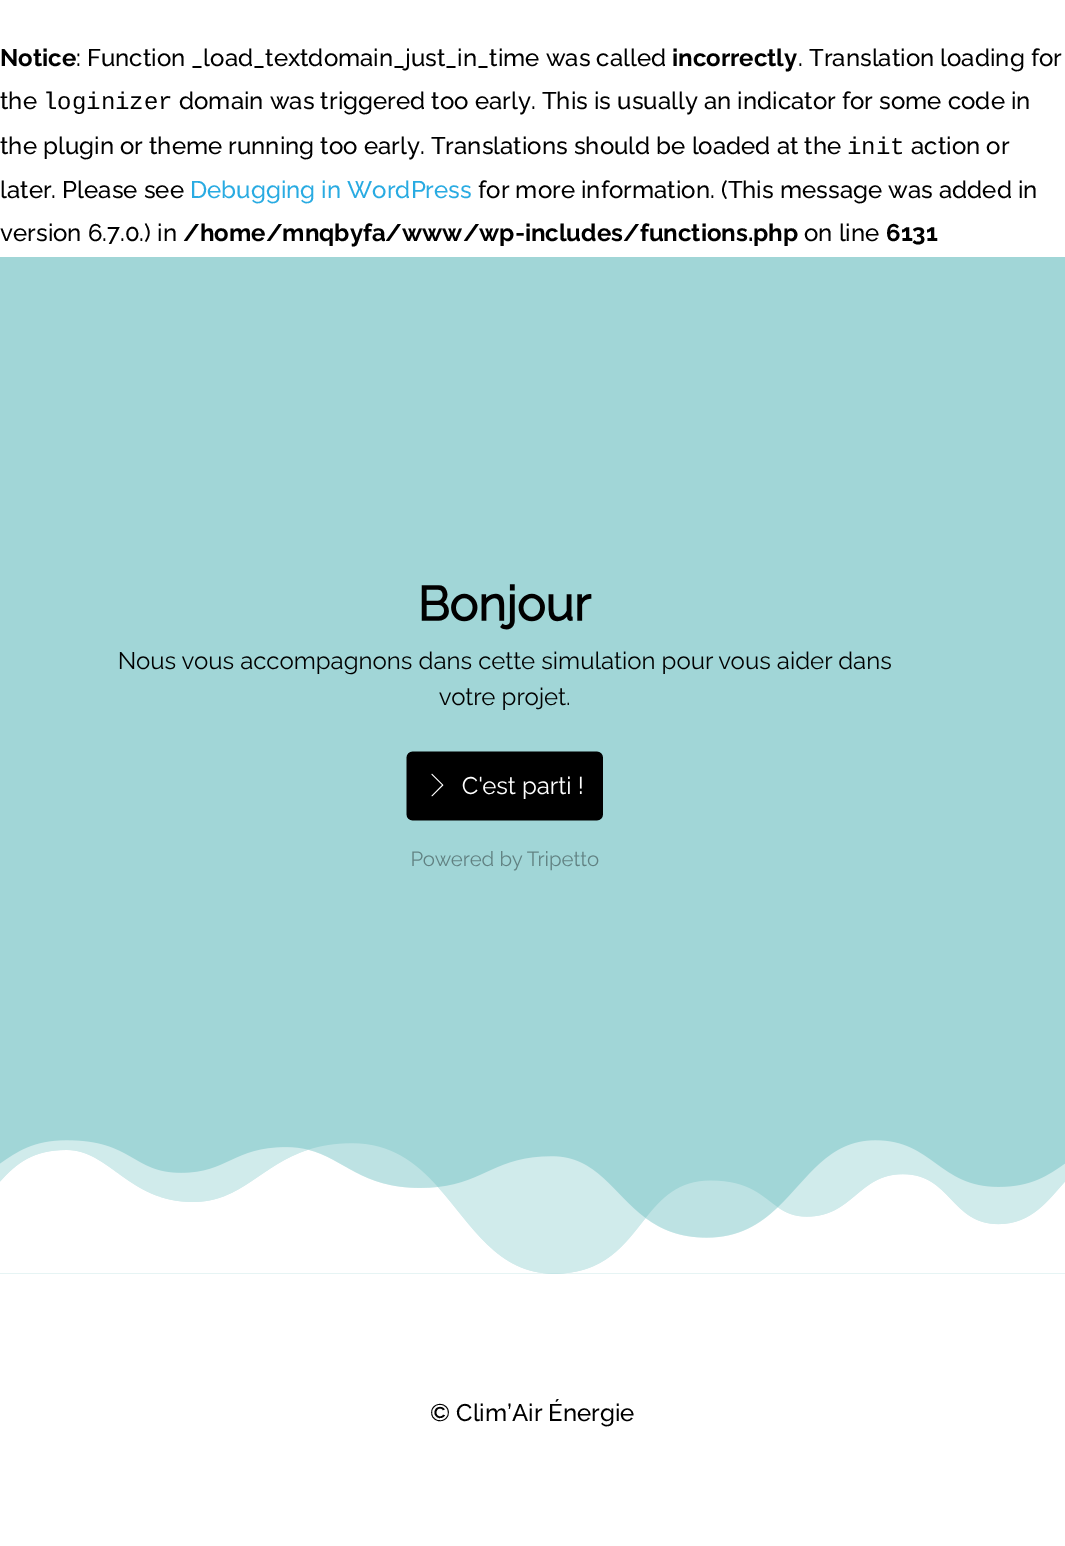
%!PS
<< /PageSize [1065 1546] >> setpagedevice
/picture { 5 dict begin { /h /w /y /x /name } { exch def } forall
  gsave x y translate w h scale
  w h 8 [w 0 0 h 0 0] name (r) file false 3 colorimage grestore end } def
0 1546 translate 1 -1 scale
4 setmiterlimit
1 setgray
0 0 1065 1546 rectfill
/Raleway-Bold [24 0 0 -24 0 0] selectfont
0 setgray
0 66 moveto (Notice) show
/Raleway-Medium [24 0 0 -24 0 0] selectfont
76 66 moveto (: Function _load_textdomain_just_in_time was called) show
/Raleway-Bold [24 0 0 -24 0 0] selectfont
672 66 moveto (incorrectly) show
/Raleway-Medium [24 0 0 -24 0 0] selectfont
798 66 moveto (. Translation loading for) show
0 109 moveto (the) show
/LiberationMono-Regular [24 0 0 -24 0 0] selectfont
43 109 moveto (loginizer) show
/Raleway-Medium [24 0 0 -24 0 0] selectfont
179 109 moveto (domain was triggered too early. This is usually an indicator for some code in) show
0 154 moveto (the plugin or theme running too early. Translations should be loaded at the) show
/LiberationMono-Regular [24 0 0 -24 0 0] selectfont
847 154 moveto (init) show
/Raleway-Medium [24 0 0 -24 0 0] selectfont
911 154 moveto (action or) show
0 198 moveto (later. Please see) show
0.161 0.671 0.886 setrgbcolor
190 198 moveto (Debugging in WordPress) show
0 setgray
478 198 moveto (for more information. \(This message was added in) show
0 241 moveto (version 6.7.0.\) in) show
/Raleway-Bold [24 0 0 -24 0 0] selectfont
183 241 moveto (/home/mnqbyfa/www/wp-includes/functions.php) show
/Raleway-Medium [24 0 0 -24 0 0] selectfont
804 241 moveto (on line) show
/Raleway-Bold [24 0 0 -24 0 0] selectfont
886 241 moveto (6131) show
0.631 0.839 0.843 setrgbcolor
0 257 1065 1017 rectfill
(img1.rgb) 119 584 772 287 picture
(img2.rgb) 0 1140 1065 134 picture
/Raleway-Medium [24 0 0 -24 0 0] selectfont
0 setgray
430 1421 moveto (© Clim’Air Énergie) show
showpage
